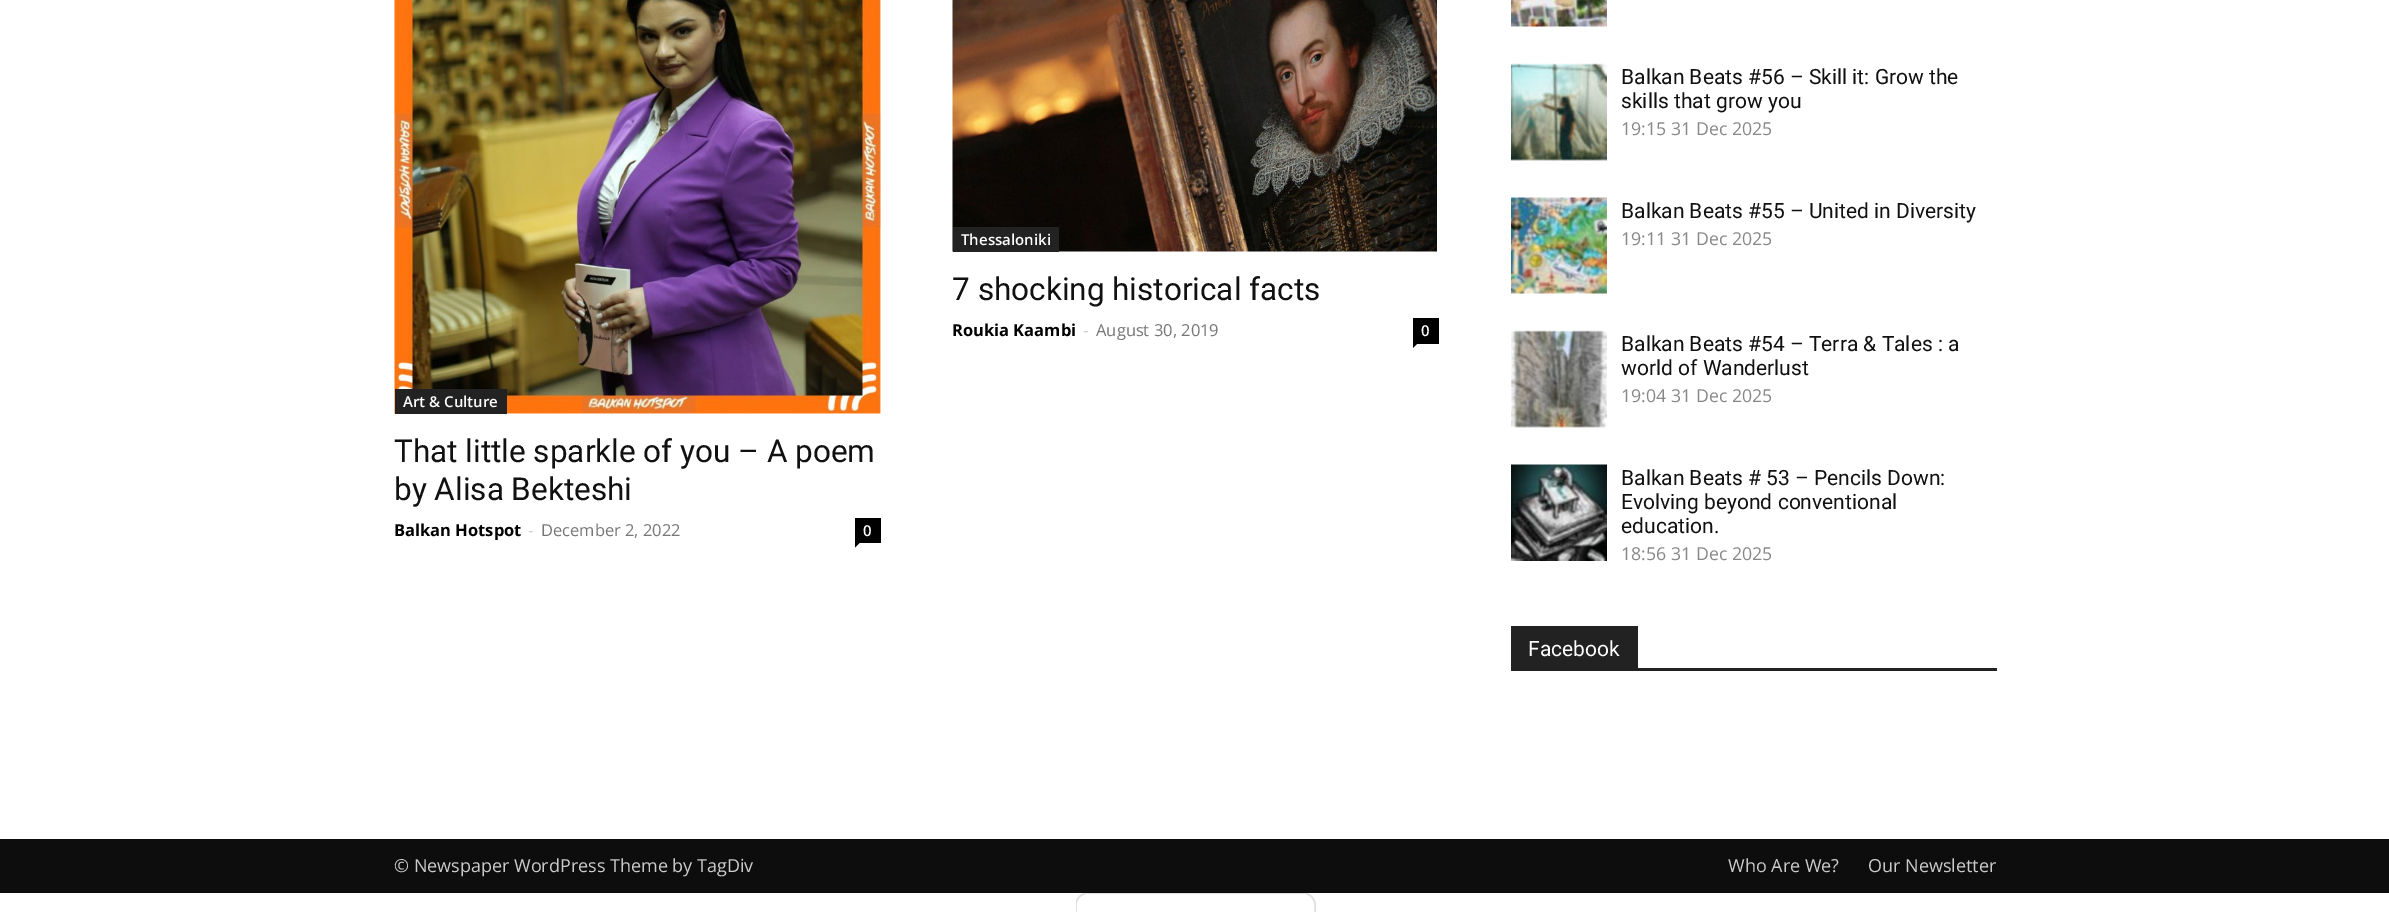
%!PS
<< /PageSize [2389 912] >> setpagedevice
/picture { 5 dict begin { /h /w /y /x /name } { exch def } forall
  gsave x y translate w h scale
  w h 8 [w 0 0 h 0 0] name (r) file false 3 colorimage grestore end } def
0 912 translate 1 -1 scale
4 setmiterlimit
1 setgray
0 0 2389 912 rectfill
(img1.rgb) 952 0 485 252 picture
0.133 setgray
953 227 106 25 rectfill
/OpenSans-SemiBold [15 0 0 -15 0 0] selectfont
1 setgray
961 245 moveto (Thessaloniki) show
/Roboto-Regular [31.5 0 0 -31.5 0 0] selectfont
0.067 setgray
952 300 moveto (7 shocking historical facts) show
/OpenSans-Bold [16.5 0 0 -16.5 0 0] selectfont
0 setgray
952 336 moveto (Roukia Kaambi) show
/OpenSans-Regular [16.5 0 0 -16.5 0 0] selectfont
0.8 setgray
1083 336 moveto (-) show
0.463 setgray
1096 336 moveto (August 30, 2019) show
0 setgray
1413 318 26 26 rectfill
/OpenSans-SemiBold [15 0 0 -15 0 0] selectfont
1 setgray
1421 336 moveto (0) show
0 setgray
newpath 1413 343.5 moveto 1417.5 343.5 lineto 1413 348 lineto closepath fill
(img2.rgb) 394 0 487 414 picture
0.133 setgray
395 389 112 25 rectfill
1 setgray
403 407 moveto (Art & Culture) show
/Roboto-Regular [31.5 0 0 -31.5 0 0] selectfont
0.067 setgray
394 462 moveto (That little sparkle of you – A poem) show
394 500 moveto (by Alisa Bekteshi) show
/OpenSans-Bold [16.5 0 0 -16.5 0 0] selectfont
0 setgray
394 536 moveto (Balkan Hotspot) show
/OpenSans-Regular [16.5 0 0 -16.5 0 0] selectfont
0.8 setgray
528 536 moveto (-) show
0.463 setgray
541 536 moveto (December 2, 2022) show
0 setgray
855 518 26 25 rectfill
/OpenSans-SemiBold [15 0 0 -15 0 0] selectfont
1 setgray
863 536 moveto (0) show
0 setgray
newpath 855 543 moveto 859.5 543 lineto 855 547.5 lineto closepath fill
(img3.rgb) 1511 0 96 27 picture
(img4.rgb) 1511 63 96 98 picture
/Roboto-Regular [21 0 0 -21 0 0] selectfont
0.067 setgray
1621 84 moveto (Balkan Beats #56 – Skill it: Grow the) show
1621 108 moveto (skills that grow you) show
/OpenSans-Regular [17.75 0 0 -17.75 0 0] selectfont
0.533 setgray
1621 135 moveto (19:15 31 Dec 2025) show
(img5.rgb) 1511 197 96 97 picture
/Roboto-Regular [21 0 0 -21 0 0] selectfont
0.067 setgray
1621 218 moveto (Balkan Beats #55 – United in Diversity) show
/OpenSans-Regular [17.75 0 0 -17.75 0 0] selectfont
0.533 setgray
1621 245 moveto (19:11 31 Dec 2025) show
(img6.rgb) 1511 330 96 98 picture
/Roboto-Regular [21 0 0 -21 0 0] selectfont
0.067 setgray
1621 351 moveto (Balkan Beats #54 – Terra & Tales : a) show
1621 375 moveto (world of Wanderlust) show
/OpenSans-Regular [17.75 0 0 -17.75 0 0] selectfont
0.533 setgray
1621 402 moveto (19:04 31 Dec 2025) show
(img7.rgb) 1511 464 96 97 picture
/Roboto-Regular [21 0 0 -21 0 0] selectfont
0.067 setgray
1621 485 moveto (Balkan Beats # 53 – Pencils Down:) show
1621 509 moveto (Evolving beyond conventional) show
1621 533 moveto (education.) show
/OpenSans-Regular [17.75 0 0 -17.75 0 0] selectfont
0.533 setgray
1621 560 moveto (18:56 31 Dec 2025) show
0.133 setgray
1511 668 486 3 rectfill
1511 626 127 42 rectfill
/Roboto-Regular [21 0 0 -21 0 0] selectfont
1 setgray
1528 656 moveto (Facebook) show
0.051 setgray
0 839 2389 54 rectfill
/OpenSans-Regular [18 0 0 -18 0 0] selectfont
0.8 setgray
394 872 moveto (© Newspaper WordPress Theme by TagDiv) show
1728 872 moveto (Who Are We?) show
1868 872 moveto (Our Newsletter) show
gsave
1076 893 240 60 rectclip
0.878 setgray
1.5 setlinewidth
newpath 1087.5 893 moveto 1303.5 893 lineto 1309.5 893 1315 898.5 1315 904.5 curveto 1315 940.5 lineto 1315 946.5 1309.5 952 1303.5 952 curveto 1087.5 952 lineto 1081.5 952 1076 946.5 1076 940.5 curveto 1076 904.5 lineto 1076 898.5 1081.5 893 1087.5 893 curveto closepath stroke
grestore
showpage
